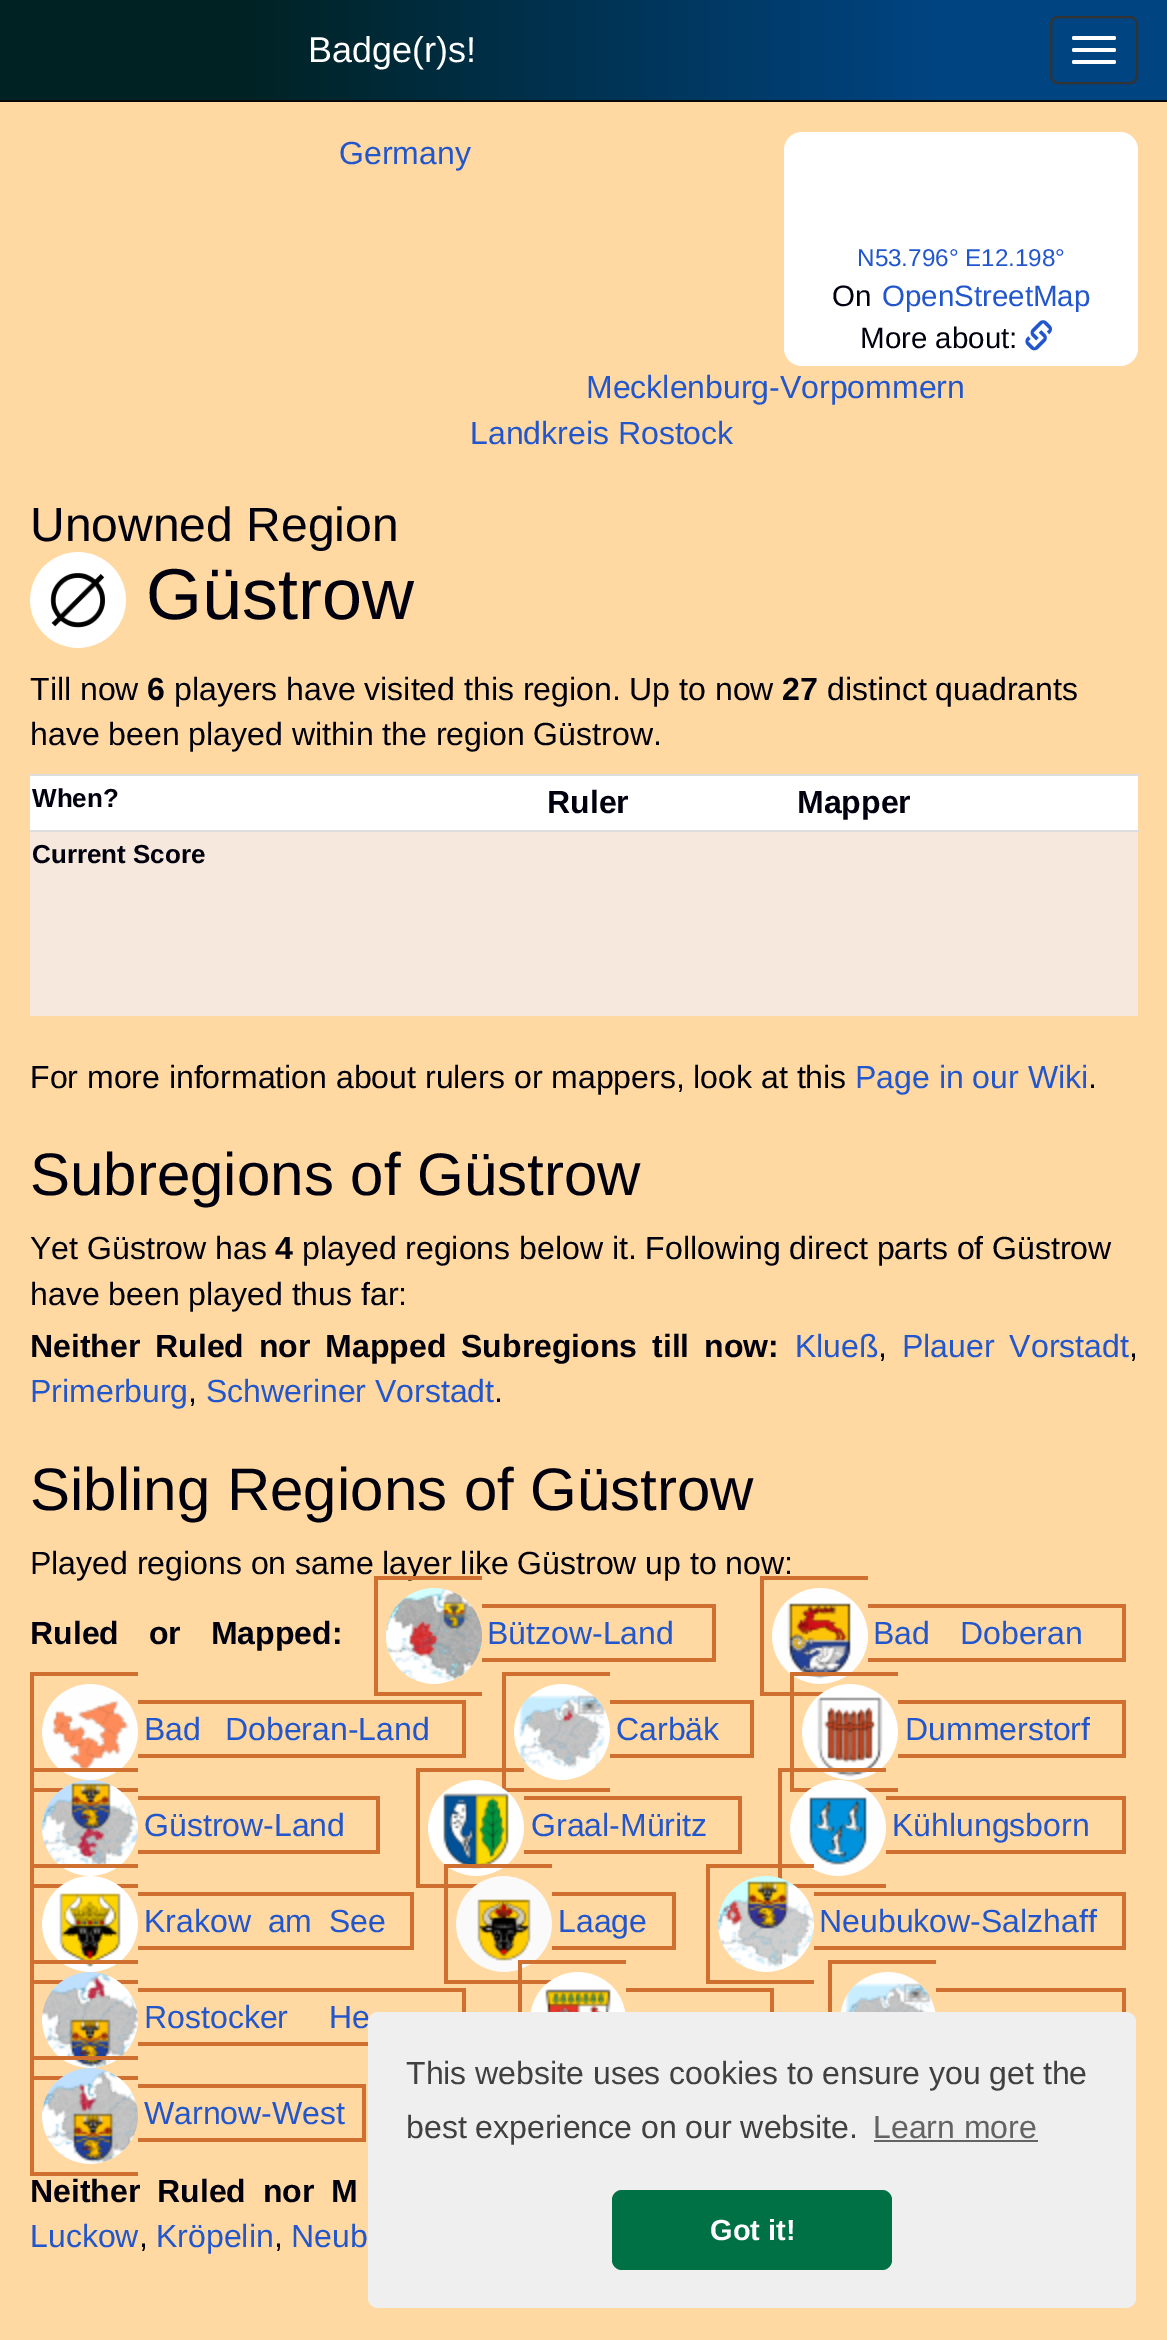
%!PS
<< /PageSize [1167 2340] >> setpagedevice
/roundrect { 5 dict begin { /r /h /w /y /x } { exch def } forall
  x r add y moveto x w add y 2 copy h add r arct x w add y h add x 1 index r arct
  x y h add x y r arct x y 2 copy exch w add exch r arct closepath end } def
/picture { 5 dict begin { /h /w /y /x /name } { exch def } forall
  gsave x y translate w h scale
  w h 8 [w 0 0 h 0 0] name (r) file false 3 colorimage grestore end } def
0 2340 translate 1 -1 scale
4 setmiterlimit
1 0.851 0.631 setrgbcolor
0 0 1167 2340 rectfill
gsave newpath 0 0 moveto 1167 0 lineto 1167 100 lineto 0 100 lineto closepath clip newpath
<< /ShadingType 2 /ColorSpace /DeviceRGB /Coords [0 50 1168 50] /Extend [true true] /Function << /FunctionType 3 /Domain [0 1] /Functions [<< /FunctionType 2 /Domain [0 1] /C0 [0 0.133 0.133] /C1 [0 0.133 0.133] /N 1 >> << /FunctionType 2 /Domain [0 1] /C0 [0 0.133 0.133] /C1 [0 0.267 0.51] /N 1 >> << /FunctionType 2 /Domain [0 1] /C0 [0 0.267 0.51] /C1 [0 0.267 0.51] /N 1 >>] /Bounds [0.2 0.8] /Encode [0 1 0 1 0 1] >> >> shfill grestore
0.031 setgray
0 100 1167 2 rectfill
/LiberationSans-Regular [36 0 0 -36 0 0] selectfont
1 setgray
308 62 moveto (Badge\(r\)s!) show
0.2 setgray
2 setlinewidth
1051 17 86 66 7 roundrect stroke
1 setgray
1072 36 44 4 2 roundrect fill
1072 48 44 4 2 roundrect fill
1072 60 44 4 2 roundrect fill
/LiberationSans-Regular [32 0 0 -32 0 0] selectfont
0.133 0.337 0.8 setrgbcolor
339 164 moveto (Germany) show
586 398 moveto (Mecklenburg-Vorpommern) show
470 444 moveto (Landkreis Rostock) show
/LiberationSans-Regular [48 0 0 -48 0 0] selectfont
0 0 0.059 setrgbcolor
30 541 moveto (Unowned Region) show
(img1.rgb) 30 552 96 96 picture
/LiberationSans-Regular [72 0 0 -72 0 0] selectfont
146 619 moveto (Güstrow) show
1 setgray
784 132 354 234 18 roundrect fill
/LiberationSans-Regular [24.25 0 0 -24.25 0 0] selectfont
0.133 0.337 0.8 setrgbcolor
857 266 moveto (N53.796° E12.198°) show
/LiberationSans-Regular [29.5 0 0 -29.5 0 0] selectfont
0 0 0.059 setrgbcolor
832 306 moveto (On) show
0.133 0.337 0.8 setrgbcolor
882 306 moveto (OpenStreetMap) show
0 0 0.059 setrgbcolor
860 348 moveto (More about:) show
(img2.rgb) 1025 320 27 31 picture
/LiberationSans-Regular [32 0 0 -32 0 0] selectfont
30 700 moveto (Till now) show
/LiberationSans-Bold [32 0 0 -32 0 0] selectfont
147 700 moveto (6) show
/LiberationSans-Regular [32 0 0 -32 0 0] selectfont
174 700 moveto (players have visited this region. Up to now) show
/LiberationSans-Bold [32 0 0 -32 0 0] selectfont
782 700 moveto (27) show
/LiberationSans-Regular [32 0 0 -32 0 0] selectfont
827 700 moveto (distinct quadrants) show
30 745 moveto (have been played within the region Güstrow.) show
1 setgray
30 776 1108 54 rectfill
/LiberationSans-Bold [26 0 0 -26 0 0] selectfont
0 0 0.059 setrgbcolor
32 807 moveto (When?) show
/LiberationSans-Bold [32 0 0 -32 0 0] selectfont
547 813 moveto (Ruler) show
0.867 setgray
30 774 1110 2 rectfill
0 0 0.059 setrgbcolor
797 813 moveto (Mapper) show
0.965 0.91 0.863 setrgbcolor
30 832 1108 184 rectfill
0.867 setgray
30 830 1110 2 rectfill
/LiberationSans-Bold [26 0 0 -26 0 0] selectfont
0 0 0.059 setrgbcolor
32 863 moveto (Current Score) show
/LiberationSans-Regular [32 0 0 -32 0 0] selectfont
30 1088 moveto (For more information about rulers or mappers, look at this) show
0.133 0.337 0.8 setrgbcolor
855 1088 moveto (Page in our Wiki) show
0 0 0.059 setrgbcolor
1088 1088 moveto (.) show
/LiberationSans-Regular [60 0 0 -60 0 0] selectfont
30 1195 moveto (Subregions of Güstrow) show
/LiberationSans-Regular [32 0 0 -32 0 0] selectfont
30 1259 moveto (Yet Güstrow has) show
/LiberationSans-Bold [32 0 0 -32 0 0] selectfont
275 1259 moveto (4) show
/LiberationSans-Regular [32 0 0 -32 0 0] selectfont
302 1259 moveto (played regions below it. Following direct parts of Güstrow) show
30 1305 moveto (have been played thus far:) show
/LiberationSans-Bold [32 0 0 -32 0 0] selectfont
30 1357 moveto 6 0 32 (Neither Ruled nor Mapped Subregions till now:) widthshow
/LiberationSans-Regular [32 0 0 -32 0 0] selectfont
0.133 0.337 0.8 setrgbcolor
795 1357 moveto (Klueß) show
0 0 0.059 setrgbcolor
878 1357 moveto (,) show
0.133 0.337 0.8 setrgbcolor
902 1357 moveto 6 0 32 (Plauer Vorstadt) widthshow
0 0 0.059 setrgbcolor
1129 1357 moveto (,) show
0.133 0.337 0.8 setrgbcolor
30 1402 moveto (Primerburg) show
0 0 0.059 setrgbcolor
188 1402 moveto (,) show
0.133 0.337 0.8 setrgbcolor
206 1402 moveto (Schweriner Vorstadt) show
0 0 0.059 setrgbcolor
494 1402 moveto (.) show
/LiberationSans-Regular [60 0 0 -60 0 0] selectfont
30 1510 moveto (Sibling Regions of Güstrow) show
/LiberationSans-Regular [32 0 0 -32 0 0] selectfont
30 1574 moveto (Played regions on same layer like Güstrow up to now:) show
/LiberationSans-Bold [32 0 0 -32 0 0] selectfont
30 1644 moveto 21 0 32 (Ruled or Mapped:) widthshow
(img3.rgb) 386 1588 96 96 picture
/LiberationSans-Regular [32 0 0 -32 0 0] selectfont
0.133 0.337 0.8 setrgbcolor
487 1644 moveto (Bützow-Land) show
0.816 0.439 0.188 setrgbcolor
374 1576 108 4 rectfill
374 1692 108 4 rectfill
374 1576 4 120 rectfill
482 1604 234 4 rectfill
482 1658 6 4 rectfill
712 1604 4 58 rectfill
488 1658 228 4 rectfill
(img4.rgb) 772 1588 96 96 picture
0.133 0.337 0.8 setrgbcolor
873 1644 moveto 21 0 32 (Bad Doberan) widthshow
0.816 0.439 0.188 setrgbcolor
760 1576 108 4 rectfill
760 1692 64 4 rectfill
760 1576 4 120 rectfill
868 1604 258 4 rectfill
868 1658 6 4 rectfill
1122 1604 4 58 rectfill
874 1658 252 4 rectfill
(img5.rgb) 42 1684 96 96 picture
0.133 0.337 0.8 setrgbcolor
144 1740 moveto 15 0 32 (Bad Doberan-Land) widthshow
0.816 0.439 0.188 setrgbcolor
30 1672 108 4 rectfill
30 1788 108 4 rectfill
30 1672 4 96 rectfill
138 1700 328 4 rectfill
138 1754 6 4 rectfill
462 1700 4 58 rectfill
144 1754 322 4 rectfill
(img6.rgb) 514 1684 96 96 picture
0.133 0.337 0.8 setrgbcolor
616 1740 moveto (Carbäk) show
0.816 0.439 0.188 setrgbcolor
502 1672 108 4 rectfill
502 1788 108 4 rectfill
502 1672 4 120 rectfill
610 1700 144 4 rectfill
610 1754 6 4 rectfill
750 1700 4 58 rectfill
616 1754 138 4 rectfill
(img7.rgb) 802 1684 96 96 picture
0.133 0.337 0.8 setrgbcolor
905 1740 moveto (Dummerstorf) show
0.816 0.439 0.188 setrgbcolor
790 1672 108 4 rectfill
790 1788 108 4 rectfill
790 1672 4 120 rectfill
898 1700 228 4 rectfill
898 1754 6 4 rectfill
1122 1700 4 58 rectfill
904 1754 222 4 rectfill
(img8.rgb) 42 1780 96 96 picture
0.133 0.337 0.8 setrgbcolor
144 1836 moveto (Güstrow-Land) show
0.816 0.439 0.188 setrgbcolor
30 1768 108 4 rectfill
30 1884 108 4 rectfill
30 1768 4 96 rectfill
138 1796 242 4 rectfill
138 1850 6 4 rectfill
376 1796 4 58 rectfill
144 1850 236 4 rectfill
(img9.rgb) 428 1780 96 96 picture
0.133 0.337 0.8 setrgbcolor
531 1836 moveto (Graal-Müritz) show
0.816 0.439 0.188 setrgbcolor
416 1768 108 4 rectfill
416 1884 62 4 rectfill
416 1768 4 120 rectfill
524 1796 218 4 rectfill
524 1850 6 4 rectfill
738 1796 4 58 rectfill
530 1850 212 4 rectfill
(img10.rgb) 790 1780 96 96 picture
0.133 0.337 0.8 setrgbcolor
892 1836 moveto (Kühlungsborn) show
0.816 0.439 0.188 setrgbcolor
778 1768 108 4 rectfill
792 1884 94 4 rectfill
778 1768 4 111 rectfill
886 1796 240 4 rectfill
886 1850 6 4 rectfill
1122 1796 4 58 rectfill
892 1850 234 4 rectfill
(img11.rgb) 42 1876 96 96 picture
0.133 0.337 0.8 setrgbcolor
144 1932 moveto 8 0 32 (Krakow am See) widthshow
0.816 0.439 0.188 setrgbcolor
30 1864 108 4 rectfill
30 1980 108 4 rectfill
30 1864 4 96 rectfill
138 1892 276 4 rectfill
138 1946 6 4 rectfill
410 1892 4 58 rectfill
144 1946 270 4 rectfill
(img12.rgb) 456 1876 96 96 picture
0.133 0.337 0.8 setrgbcolor
558 1932 moveto (Laage) show
0.816 0.439 0.188 setrgbcolor
444 1864 108 4 rectfill
444 1980 108 4 rectfill
444 1864 4 120 rectfill
552 1892 124 4 rectfill
552 1946 6 4 rectfill
672 1892 4 58 rectfill
558 1946 118 4 rectfill
(img13.rgb) 718 1876 96 96 picture
0.133 0.337 0.8 setrgbcolor
819 1932 moveto (Neubukow-Salzhaff) show
0.816 0.439 0.188 setrgbcolor
706 1864 108 4 rectfill
706 1980 108 4 rectfill
706 1864 4 120 rectfill
814 1892 312 4 rectfill
814 1946 6 4 rectfill
1122 1892 4 58 rectfill
820 1946 306 4 rectfill
518 1960 108 4 rectfill
518 1960 4 52 rectfill
828 1960 108 4 rectfill
(img14.rgb) 42 1972 96 96 picture
(img15.rgb) 530 1972 96 40 picture
626 1988 148 4 rectfill
828 1960 4 52 rectfill
(img16.rgb) 840 1972 96 40 picture
770 1988 4 24 rectfill
936 1988 190 4 rectfill
1122 1988 4 24 rectfill
0.133 0.337 0.8 setrgbcolor
144 2028 moveto 32 0 32 (Rostocker He) widthshow
0.816 0.439 0.188 setrgbcolor
30 1960 108 4 rectfill
30 2076 108 4 rectfill
30 1960 4 96 rectfill
138 1988 328 4 rectfill
138 2042 230 4 rectfill
462 1988 4 24 rectfill
(img17.rgb) 42 2068 96 96 picture
0.133 0.337 0.8 setrgbcolor
144 2124 moveto (Warnow-West) show
0.816 0.439 0.188 setrgbcolor
30 2056 108 4 rectfill
30 2172 108 4 rectfill
30 2056 4 120 rectfill
138 2084 228 4 rectfill
138 2138 6 4 rectfill
362 2084 4 58 rectfill
144 2138 222 4 rectfill
/LiberationSans-Bold [32 0 0 -32 0 0] selectfont
0 0 0.059 setrgbcolor
30 2202 moveto 8 0 32 (Neither Ruled nor M) widthshow
/LiberationSans-Regular [32 0 0 -32 0 0] selectfont
0.133 0.337 0.8 setrgbcolor
30 2247 moveto (Luckow) show
0 0 0.059 setrgbcolor
139 2247 moveto (,) show
0.133 0.337 0.8 setrgbcolor
156 2247 moveto (Kröpelin) show
0 0 0.059 setrgbcolor
274 2247 moveto (,) show
0.133 0.337 0.8 setrgbcolor
291 2247 moveto (Neub) show
0.937 setgray
368 2012 768 296 10 roundrect fill
0.251 setgray
406 2084 moveto (This website uses cookies to ensure you get the) show
406 2138 moveto (best experience on our website.) show
0.388 setgray
873 2138 moveto (Learn more) show
874 2140 164 2 rectfill
0 0.443 0.271 setrgbcolor
612 2190 280 80 10 roundrect fill
/LiberationSans-Bold [29 0 0 -29 0 0] selectfont
1 setgray
710 2240 moveto (Got it!) show
showpage
